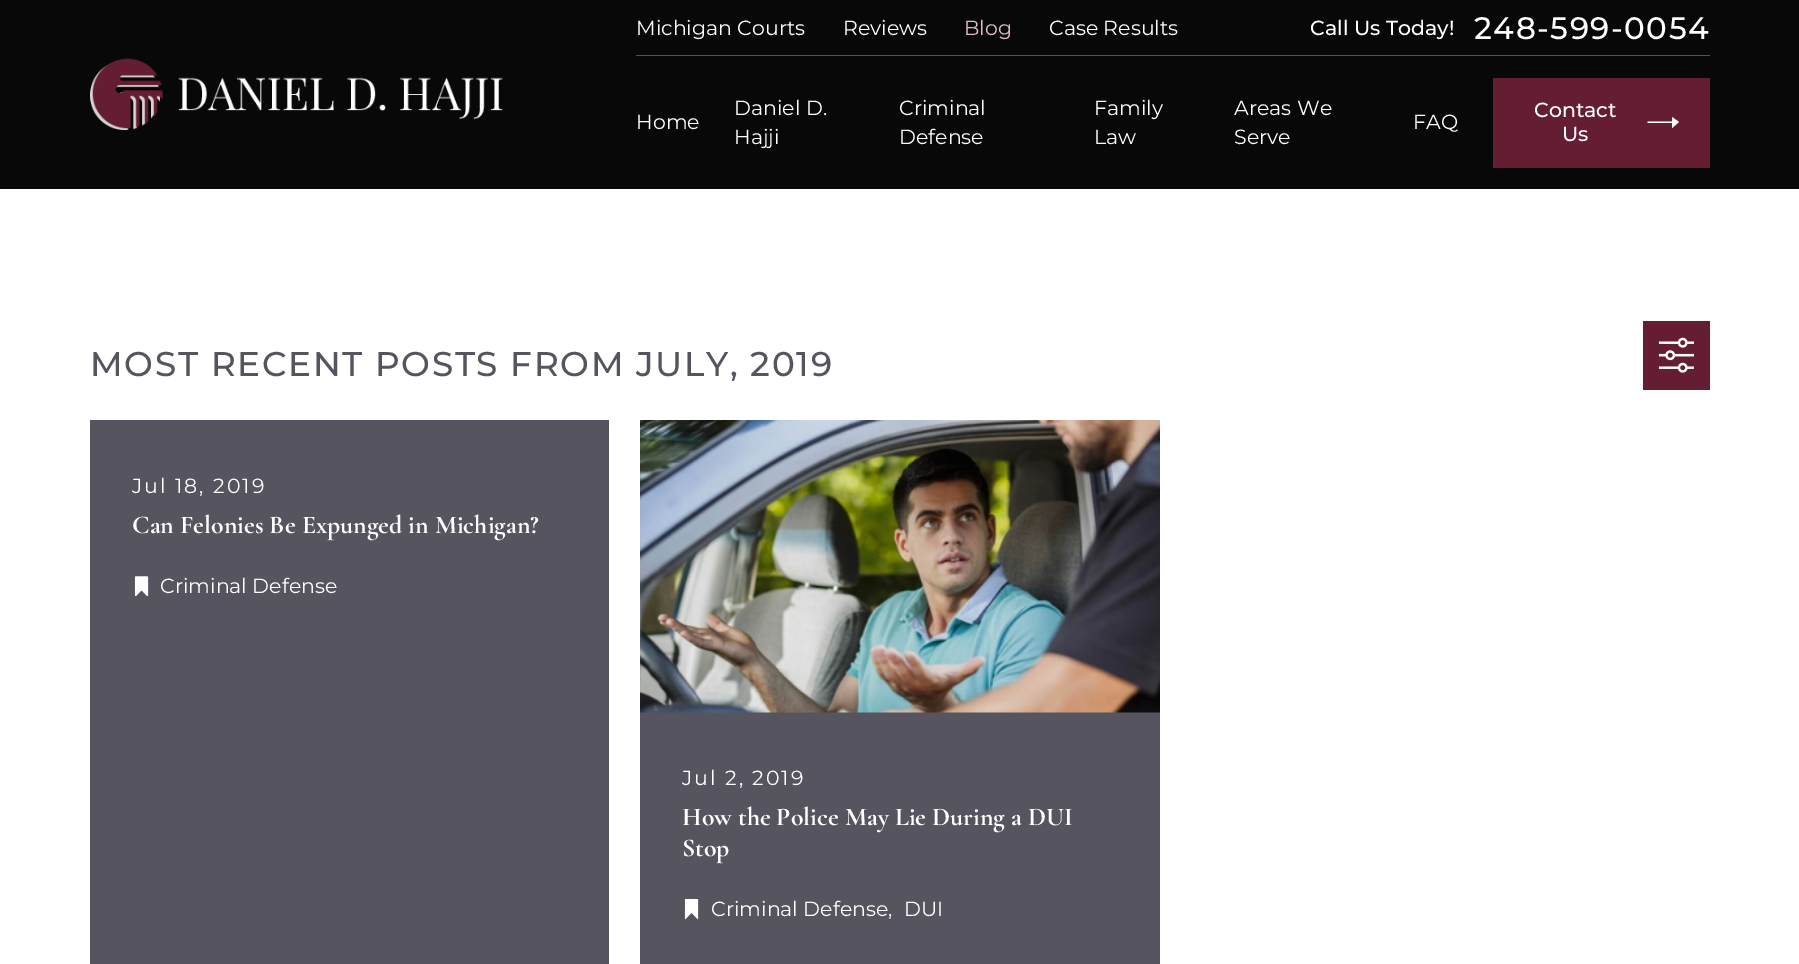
%!PS
<< /PageSize [1799 964] >> setpagedevice
/picture { 5 dict begin { /h /w /y /x /name } { exch def } forall
  gsave x y translate w h scale
  w h 8 [w 0 0 h 0 0] name (r) file false 3 colorimage grestore end } def
0 964 translate 1 -1 scale
4 setmiterlimit
1 setgray
0 0 1799 964 rectfill
0.031 setgray
0 0 1799 189 rectfill
(img1.rgb) 90 58 413 72 picture
0.322 setgray
636 55 1074 1 rectfill
/Montserrat-Regular [20.5 0 0 -20.5 0 0] selectfont
1 setgray
636 35 moveto (Michigan Courts) show
843 35 moveto (Reviews) show
0.882 0.741 0.78 setrgbcolor
964 35 moveto (Blog) show
1 setgray
1049 35 moveto (Case Results) show
/Montserrat-Medium [20.5 0 0 -20.5 0 0] selectfont
1310 35 moveto (Call Us Today!) show
/Montserrat-Medium [31 0 0 -31 0 0] selectfont
1474 39 moveto 1.5 0 (248-599-0054) ashow
/Montserrat-Regular [20.5 0 0 -20.5 0 0] selectfont
636 129 moveto (Home) show
734 115 moveto (Daniel D.) show
734 144 moveto (Hajji) show
899 115 moveto (Criminal) show
899 144 moveto (Defense) show
1094 115 moveto (Family) show
1094 144 moveto (Law) show
1234 115 moveto (Areas We) show
1234 144 moveto (Serve) show
1413 129 moveto (FAQ) show
0.396 0.114 0.192 setrgbcolor
1493 78 217 90 rectfill
/Montserrat-Medium [20.5 0 0 -20.5 0 0] selectfont
1 setgray
1534 117 moveto (Contact) show
1562 141 moveto (Us) show
newpath 1672 117 moveto 1679 122 lineto 1672 128 lineto 1672 123 lineto 1647.5 123 lineto 1647.5 121.5 lineto 1672 121.5 lineto closepath fill
/Montserrat-Medium [34.25 0 0 -34.25 0 0] selectfont
0.337 0.329 0.373 setrgbcolor
90 376 moveto 1.7 0 (MOST RECENT POSTS FROM JULY, 2019) ashow
0.396 0.114 0.192 setrgbcolor
1643 321 67 69 rectfill
(img2.rgb) 1658 337 36 36 picture
0.337 0.333 0.373 setrgbcolor
90 420 519 544 rectfill
/Montserrat-Regular [20.5 0 0 -20.5 0 0] selectfont
1 setgray
132 493 moveto 2 0 (Jul 18, 2019) ashow
/CormorantGaramond-Bold [25.75 0 0 -25.75 0 0] selectfont
132 533 moveto (Can Felonies Be Expunged in Michigan?) show
(img3.rgb) 134 576 15 20 picture
/Montserrat-Regular [20.5 0 0 -20.5 0 0] selectfont
160 593 moveto (Criminal Defense) show
0.337 0.333 0.373 setrgbcolor
640 712 520 252 rectfill
(img4.rgb) 640 420 520 293 picture
1 setgray
682 785 moveto 2 0 (Jul 2, 2019) ashow
/CormorantGaramond-Bold [25.75 0 0 -25.75 0 0] selectfont
682 825 moveto (How the Police May Lie During a DUI) show
682 856 moveto (Stop) show
(img5.rgb) 684 899 15 21 picture
/Montserrat-Regular [20.5 0 0 -20.5 0 0] selectfont
711 916 moveto (Criminal Defense,) show
904 916 moveto (DUI) show
showpage
